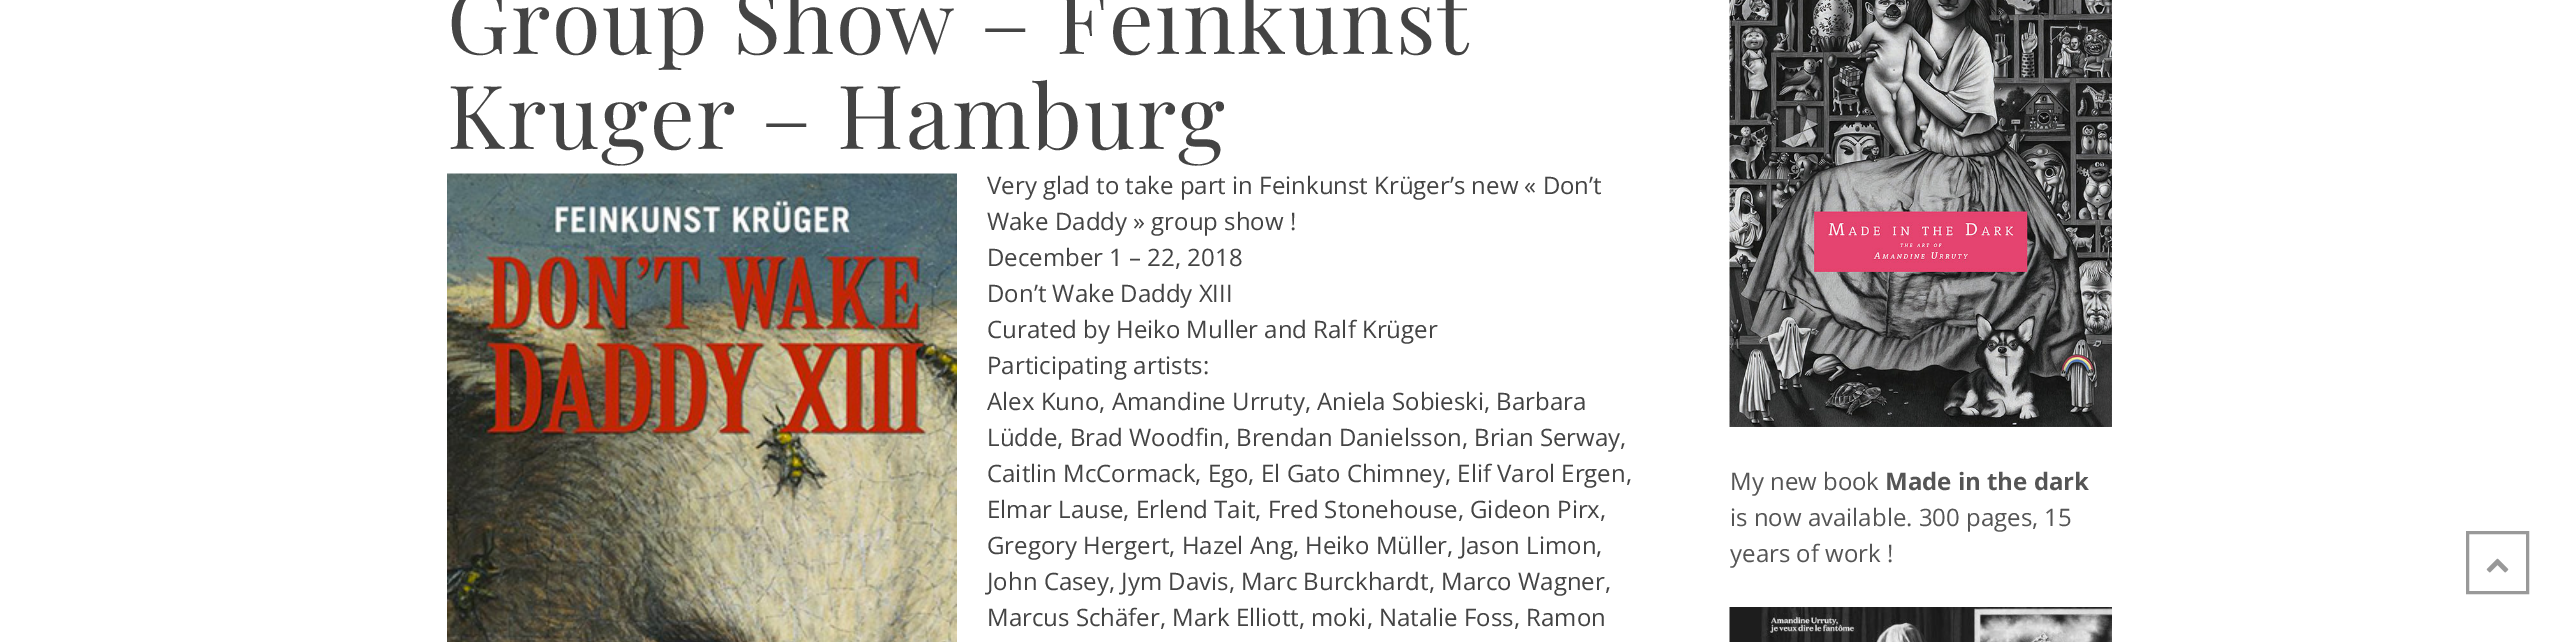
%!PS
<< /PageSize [2558 642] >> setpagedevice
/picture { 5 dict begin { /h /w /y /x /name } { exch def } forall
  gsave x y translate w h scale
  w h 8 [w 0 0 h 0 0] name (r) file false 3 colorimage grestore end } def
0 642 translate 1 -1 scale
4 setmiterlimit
1 setgray
0 0 2558 642 rectfill
/PlayfairDisplay-Regular [88.5 0 0 -88.5 0 0] selectfont
0.267 setgray
447 54 moveto 1.8 0 (Group Show – Feinkunst) ashow
447 149 moveto 1.8 0 (Kruger – Hamburg) ashow
(img1.rgb) 447 173 510 469 picture
/OpenSans-Regular [24 0 0 -24 0 0] selectfont
987 194 moveto (Very glad to take part in Feinkunst Krüger’s new « Don’t) show
987 230 moveto (Wake Daddy » group show !) show
987 266 moveto (December 1 – 22, 2018) show
987 302 moveto (Don’t Wake Daddy XIII) show
987 338 moveto (Curated by Heiko Muller and Ralf Krüger) show
987 374 moveto (Participating artists:) show
987 410 moveto (Alex Kuno, Amandine Urruty, Aniela Sobieski, Barbara) show
987 446 moveto (Lüdde, Brad Woodfin, Brendan Danielsson, Brian Serway,) show
987 482 moveto (Caitlin McCormack, Ego, El Gato Chimney, Elif Varol Ergen,) show
987 518 moveto (Elmar Lause, Erlend Tait, Fred Stonehouse, Gideon Pirx,) show
987 554 moveto (Gregory Hergert, Hazel Ang, Heiko Müller, Jason Limon,) show
987 590 moveto (John Casey, Jym Davis, Marc Burckhardt, Marco Wagner,) show
987 626 moveto (Marcus Schäfer, Mark Elliott, moki, Natalie Foss, Ramon) show
(img2.rgb) 1729 0 383 427 picture
0.333 setgray
1730 490 moveto (My new book) show
/OpenSans-Bold [24 0 0 -24 0 0] selectfont
1885 490 moveto (Made in the dark) show
/OpenSans-Regular [24 0 0 -24 0 0] selectfont
1730 526 moveto (is now available. 300 pages, 15) show
1730 562 moveto (years of work !) show
(img3.rgb) 1729 607 383 35 picture
0.6 setgray
3 setlinewidth
2467.5 532.5 60 60 rectstroke
(img4.rgb) 2486 558 23 15 picture
showpage
